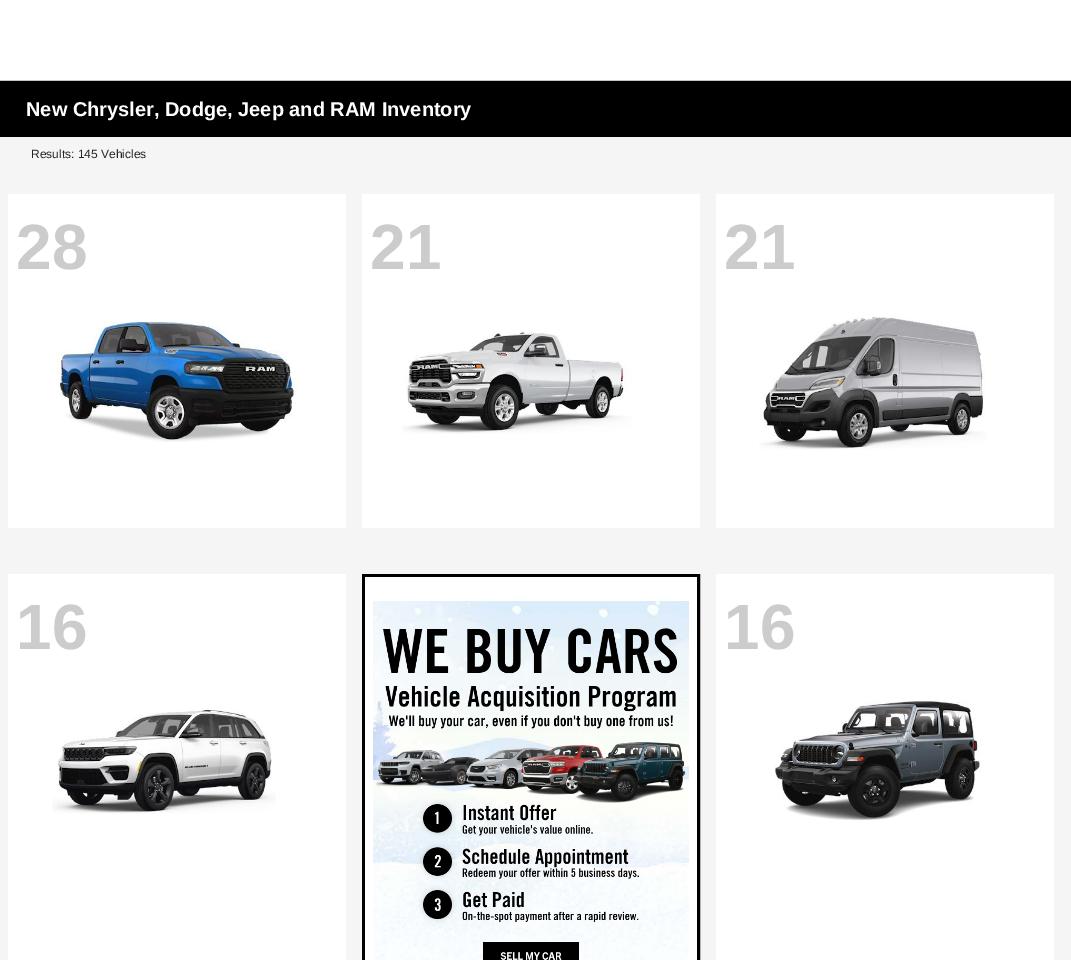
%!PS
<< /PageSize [1071 960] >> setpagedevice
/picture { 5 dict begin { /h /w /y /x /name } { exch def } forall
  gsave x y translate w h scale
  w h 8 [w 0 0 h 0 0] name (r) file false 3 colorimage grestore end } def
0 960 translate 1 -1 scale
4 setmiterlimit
1 setgray
0 0 1071 960 rectfill
0.961 setgray
0 137 1071 823 rectfill
0 setgray
0 81 1071 56 rectfill
0.776 setgray
0 80 1071 1 rectfill
/LiberationSans-Bold [20 0 0 -20 0 0] selectfont
1 setgray
26 116 moveto (New Chrysler, Dodge, Jeep and RAM Inventory) show
/LiberationSans-Regular [12 0 0 -12 0 0] selectfont
0.129 0.145 0.161 setrgbcolor
31 158 moveto (Results: 145 Vehicles) show
1 setgray
8 194 338 334 rectfill
/LiberationSans-Bold [64 0 0 -64 0 0] selectfont
0.8 setgray
16 269 moveto (28) show
(img1.rgb) 55 321 242 121 picture
1 setgray
362 194 338 334 rectfill
0.8 setgray
370 269 moveto (21) show
(img2.rgb) 402 331 230 103 picture
1 setgray
716 194 338 334 rectfill
0.8 setgray
724 269 moveto (21) show
(img3.rgb) 759 317 227 133 picture
1 setgray
8 574 338 386 rectfill
0.8 setgray
16 649 moveto (16) show
(img4.rgb) 52 707 224 107 picture
0 setgray
3 setlinewidth
363.5 575.5 335 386 rectstroke
1 setgray
365 577 332 383 rectfill
(img5.rgb) 373 601 316 359 picture
716 574 338 386 rectfill
0.8 setgray
724 649 moveto (16) show
(img6.rgb) 774 701 207 120 picture
showpage
